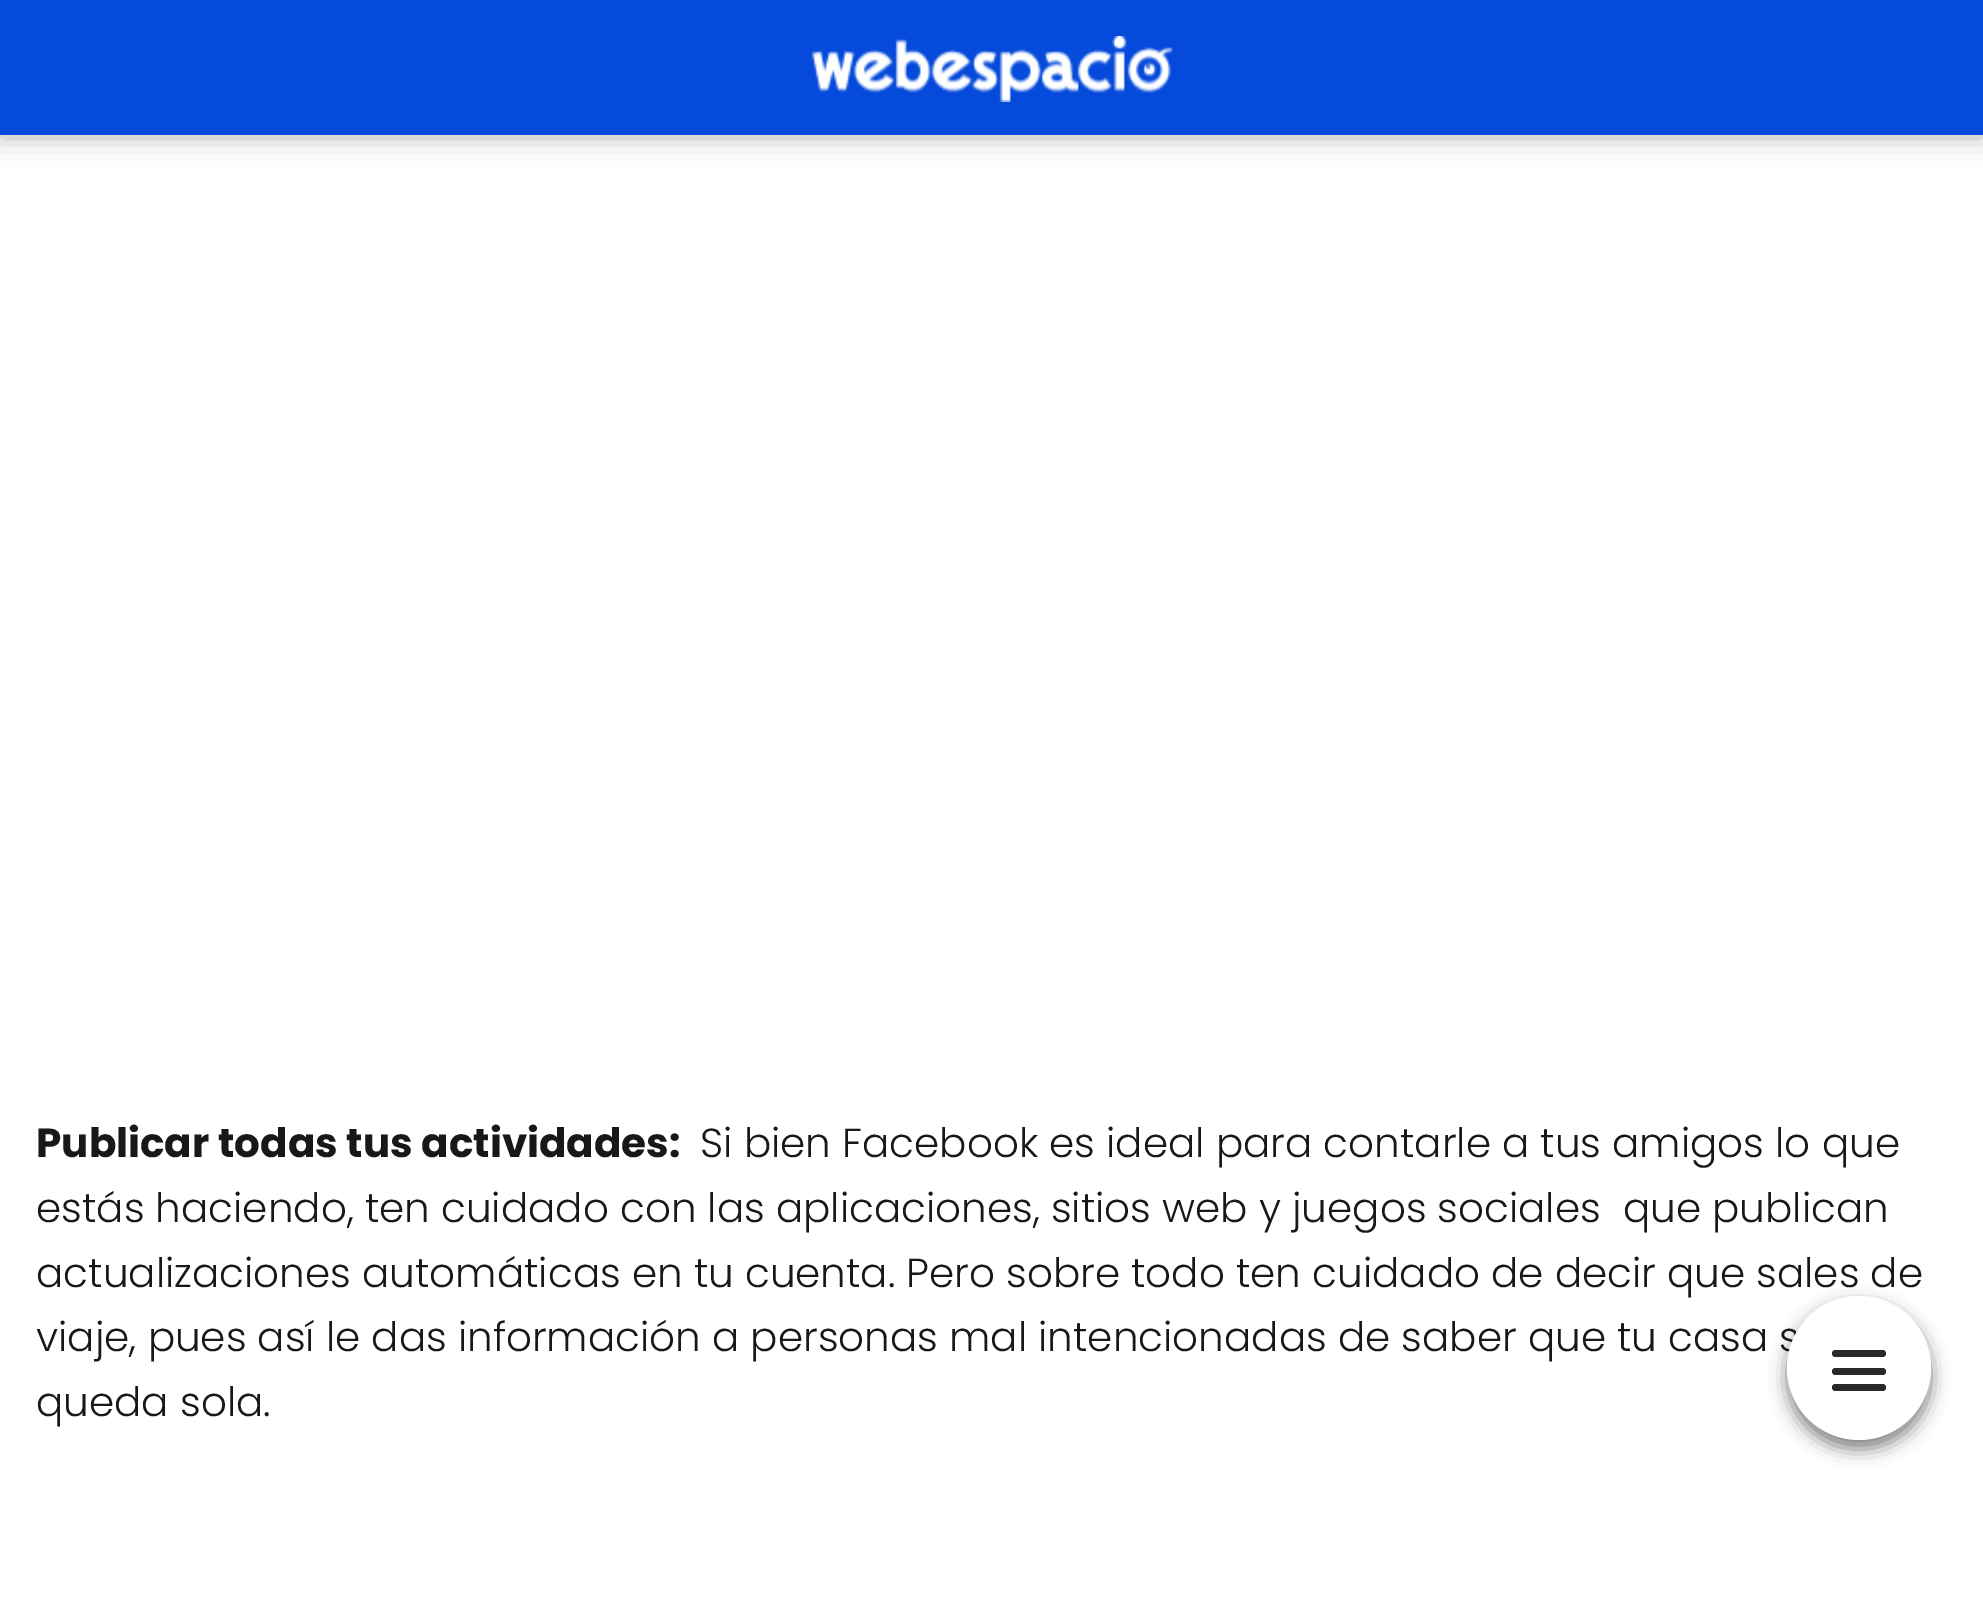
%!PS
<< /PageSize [1983 1620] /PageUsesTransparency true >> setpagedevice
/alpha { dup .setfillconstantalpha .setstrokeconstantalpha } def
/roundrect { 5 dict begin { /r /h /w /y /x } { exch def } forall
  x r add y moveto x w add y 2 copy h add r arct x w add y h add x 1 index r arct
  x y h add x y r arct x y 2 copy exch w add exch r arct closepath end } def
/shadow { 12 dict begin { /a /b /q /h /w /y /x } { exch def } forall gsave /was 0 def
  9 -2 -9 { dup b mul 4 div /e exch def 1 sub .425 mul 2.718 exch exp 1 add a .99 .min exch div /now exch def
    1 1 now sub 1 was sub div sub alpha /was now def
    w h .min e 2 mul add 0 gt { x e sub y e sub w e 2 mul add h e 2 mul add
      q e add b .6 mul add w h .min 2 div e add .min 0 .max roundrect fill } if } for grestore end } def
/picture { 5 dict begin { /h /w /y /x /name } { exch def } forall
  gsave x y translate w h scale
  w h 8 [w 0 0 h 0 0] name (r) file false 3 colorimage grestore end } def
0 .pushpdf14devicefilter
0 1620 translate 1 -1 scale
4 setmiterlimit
1 setgray
0 0 1983 1620 rectfill
0 setgray
0 2 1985 135 0 13.5 0.3 shadow
0.02 0.29 0.855 setrgbcolor
0 0 1983 135 rectfill
(img1.rgb) 812 36 361 66 picture
0 setgray
1787 1305 144 144 72 9 0.5 shadow
/Poppins-Light [40.5 0 0 -40.5 0 0] selectfont
0.094 setgray
36 1287 moveto (actualizaciones automáticas en tu cuenta. Pero sobre todo ten cuidado de decir que sales de) show
36 1351 moveto (viaje, pues así le das información a personas mal intencionadas de saber que tu casa s) show
1 setgray
newpath 1859 1368 72 0 360 arc closepath fill
0.157 setgray
1832 1350 54 7 3.5 roundrect fill
1832 1368 54 7 3.5 roundrect fill
1832 1384 54 7 3.5 roundrect fill
/Poppins-Bold [40.5 0 0 -40.5 0 0] selectfont
0.094 setgray
36 1157 moveto (Publicar todas tus actividades:) show
/Poppins-Light [40.5 0 0 -40.5 0 0] selectfont
700 1157 moveto (Si bien Facebook es ideal para contarle a tus amigos lo que) show
36 1222 moveto (estás haciendo, ten cuidado con las aplicaciones, sitios web y juegos sociales  que publican) show
36 1416 moveto (queda sola.) show
.poppdf14devicefilter showpage
